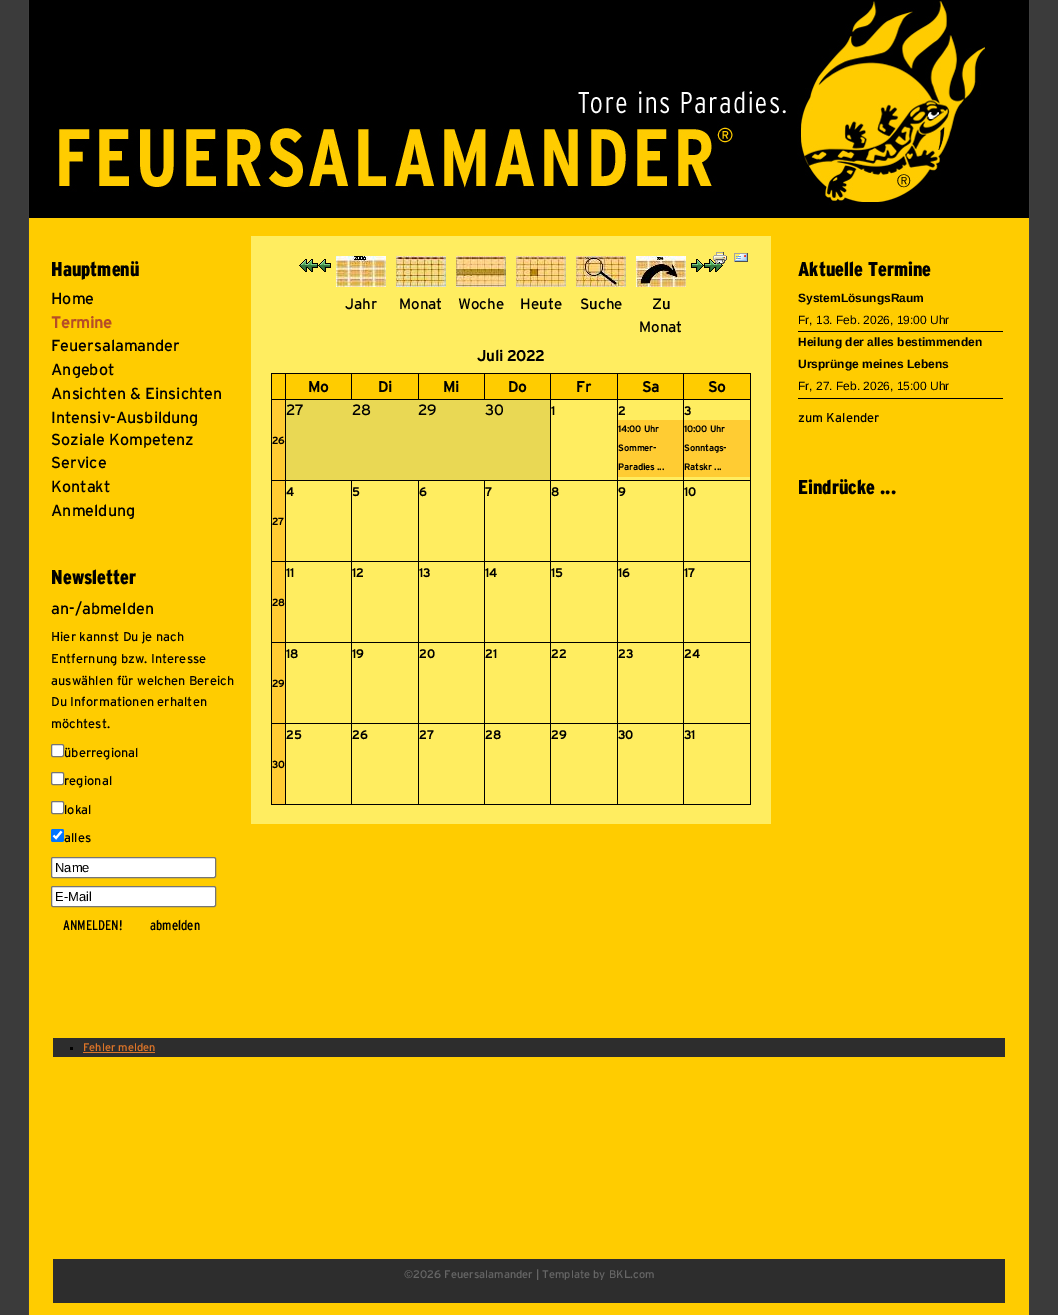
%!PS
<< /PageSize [1058 1315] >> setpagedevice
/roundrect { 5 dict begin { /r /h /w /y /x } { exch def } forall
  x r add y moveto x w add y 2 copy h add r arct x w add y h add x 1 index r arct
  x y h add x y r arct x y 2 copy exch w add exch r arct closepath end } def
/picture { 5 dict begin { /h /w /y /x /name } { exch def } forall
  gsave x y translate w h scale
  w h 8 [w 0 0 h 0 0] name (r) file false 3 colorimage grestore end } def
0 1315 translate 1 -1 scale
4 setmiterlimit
0.231 setgray
0 0 1058 1315 rectfill
1 0.8 0 setrgbcolor
29 218 1000 1097 rectfill
0.247 setgray
1029 0 1 1315 rectfill
28 0 1 1315 rectfill
0 setgray
29 0 1000 218 rectfill
(img1.rgb) 57 1 928 204 picture
/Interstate-Black [20 0 0 -20 0 0] selectfont
51 276 moveto (Hauptmenü) show
/Interstate-Regular [16 0 0 -16 0 0] selectfont
51 304 moveto (Home) show
/Interstate-Bold [16 0 0 -16 0 0] selectfont
0.714 0.302 0.157 setrgbcolor
51 328 moveto (Termine) show
/Interstate-Regular [16 0 0 -16 0 0] selectfont
0 setgray
51 351 moveto (Feuersalamander) show
51 375 moveto (Angebot) show
51 399 moveto (Ansichten & Einsichten) show
51 423 moveto (Intensiv-Ausbildung) show
51 445 moveto (Soziale Kompetenz) show
51 468 moveto (Service) show
51 492 moveto (Kontakt) show
51 516 moveto (Anmeldung) show
/Interstate-Black [20 0 0 -20 0 0] selectfont
51 584 moveto (Newsletter) show
/Interstate-Regular [16 0 0 -16 0 0] selectfont
51 614 moveto (an-/abmelden) show
/Interstate-Regular [12.75 0 0 -12.75 0 0] selectfont
51 641 moveto (Hier kannst Du je nach) show
51 663 moveto (Entfernung bzw. Interesse) show
51 685 moveto (auswählen für welchen Bereich) show
51 706 moveto (Du Informationen erhalten) show
51 728 moveto (möchtest.) show
1 setgray
51.5 744.5 12 12 1.5 roundrect gsave fill grestore
0.463 setgray
stroke
0 setgray
64 757 moveto (überregional) show
1 setgray
51.5 772.5 12 12 1.5 roundrect gsave fill grestore
0.463 setgray
stroke
0 setgray
64 785 moveto (regional) show
1 setgray
51.5 801.5 12 12 1.5 roundrect gsave fill grestore
0.463 setgray
stroke
0 setgray
64 814 moveto (lokal) show
0 0.459 1 setrgbcolor
51 829 13 13 2 roundrect fill
1 setgray
2.1 setlinewidth
newpath 53.5 835.5 moveto 56 838 lineto 61.5 831.5 lineto stroke
0 setgray
64 842 moveto (alles) show
1 setgray
51.5 857.5 164 20 1.5 roundrect gsave fill grestore
0.463 setgray
1 setlinewidth
stroke
/LiberationSans-Regular [13 0 0 -13 0 0] selectfont
0 setgray
55 872 moveto (Name) show
1 setgray
51.5 886.5 164 20 1.5 roundrect gsave fill grestore
0.463 setgray
stroke
0 setgray
55 901 moveto (E-Mail) show
/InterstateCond-Regular [14 0 0 -14 0 0] selectfont
63 930 moveto (ANMELDEN!) show
150 930 moveto (abmelden) show
1 0.929 0.376 setrgbcolor
251 236 520 588 rectfill
(img13.rgb) 704 259 19 13 picture
(img2.rgb) 713 252 14 12 picture
(img3.rgb) 734 253 14 9 picture
(img4.rgb) 299 259 19 13 picture
(img5.rgb) 318 259 13 13 picture
(img6.rgb) 336 256 50 31 picture
(img7.rgb) 396 256 50 31 picture
(img8.rgb) 456 256 50 31 picture
(img9.rgb) 516 256 50 31 picture
(img10.rgb) 576 256 50 31 picture
(img11.rgb) 636 256 50 31 picture
(img12.rgb) 691 259 13 13 picture
/Interstate-Regular [15 0 0 -15 0 0] selectfont
0 setgray
345 309 moveto (Jahr) show
399 309 moveto (Monat) show
458 309 moveto (Woche) show
520 309 moveto (Heute) show
580 309 moveto (Suche) show
652 309 moveto (Zu) show
639 332 moveto (Monat) show
/Interstate-Bold [15 0 0 -15 0 0] selectfont
477 361 moveto (Juli 2022) show
271 373 480 1 rectfill
750 373 1 432 rectfill
271 804 480 1 rectfill
271 373 1 432 rectfill
271 399 480 1 rectfill
1 0.8 0 setrgbcolor
272 374 13 25 rectfill
286 374 65 25 rectfill
0 setgray
308 392 moveto (Mo) show
1 0.8 0 setrgbcolor
352 374 66 25 rectfill
0 setgray
351 373 1 27 rectfill
378 392 moveto (Di) show
1 0.8 0 setrgbcolor
419 374 65 25 rectfill
0 setgray
418 373 1 27 rectfill
443 392 moveto (Mi) show
1 0.8 0 setrgbcolor
485 374 65 25 rectfill
0 setgray
484 373 1 27 rectfill
508 392 moveto (Do) show
1 0.8 0 setrgbcolor
551 374 66 25 rectfill
0 setgray
576 392 moveto (Fr) show
1 0.8 0 setrgbcolor
618 374 65 25 rectfill
0 setgray
642 392 moveto (Sa) show
1 0.8 0 setrgbcolor
684 374 66 25 rectfill
0 setgray
708 392 moveto (So) show
271 480 480 1 rectfill
1 0.8 0.2 setrgbcolor
272 400 13 80 rectfill
/Interstate-Bold [10 0 0 -10 0 0] selectfont
0 setgray
272 444 moveto (26) show
0.914 0.847 0.329 setrgbcolor
286 400 264 80 rectfill
/Interstate-Regular [15 0 0 -15 0 0] selectfont
0 setgray
286 415 moveto (27) show
352 415 moveto (28) show
418 415 moveto (29) show
485 415 moveto (30) show
/Interstate-Bold [12 0 0 -12 0 0] selectfont
551 415 moveto (1) show
618 415 moveto (2) show
1 0.8 0.2 setrgbcolor
618 420 65 57 rectfill
0 setgray
271 561 480 1 rectfill
271 642 480 1 rectfill
271 723 480 1 rectfill
617 373 1 432 rectfill
/Interstate-Bold [9 0 0 -9 0 0] selectfont
618 432 moveto (14:00 Uhr) show
618 451 moveto (Sommer-) show
618 470 moveto (Paradies ...) show
/Interstate-Bold [12 0 0 -12 0 0] selectfont
684 415 moveto (3) show
1 0.8 0.2 setrgbcolor
684 420 66 57 rectfill
/Interstate-Bold [9 0 0 -9 0 0] selectfont
0 setgray
684 432 moveto (10:00 Uhr) show
684 451 moveto (Sonntags-) show
684 470 moveto (Ratskr ...) show
/Interstate-Bold [12 0 0 -12 0 0] selectfont
286 496 moveto (4) show
352 496 moveto (5) show
419 496 moveto (6) show
485 496 moveto (7) show
551 496 moveto (8) show
618 496 moveto (9) show
684 496 moveto (10) show
1 0.8 0.2 setrgbcolor
272 481 13 80 rectfill
/Interstate-Bold [10 0 0 -10 0 0] selectfont
0 setgray
272 525 moveto (27) show
/Interstate-Bold [12 0 0 -12 0 0] selectfont
286 577 moveto (11) show
352 577 moveto (12) show
418 480 1 325 rectfill
419 577 moveto (13) show
485 577 moveto (14) show
551 577 moveto (15) show
618 577 moveto (16) show
684 577 moveto (17) show
1 0.8 0.2 setrgbcolor
272 562 13 80 rectfill
/Interstate-Bold [10 0 0 -10 0 0] selectfont
0 setgray
272 606 moveto (28) show
/Interstate-Bold [12 0 0 -12 0 0] selectfont
286 658 moveto (18) show
352 658 moveto (19) show
419 658 moveto (20) show
485 658 moveto (21) show
551 658 moveto (22) show
618 658 moveto (23) show
684 658 moveto (24) show
1 0.8 0.2 setrgbcolor
272 643 13 80 rectfill
/Interstate-Bold [10 0 0 -10 0 0] selectfont
0 setgray
272 687 moveto (29) show
285 373 1 432 rectfill
/Interstate-Bold [12 0 0 -12 0 0] selectfont
286 739 moveto (25) show
351 480 1 325 rectfill
352 739 moveto (26) show
419 739 moveto (27) show
484 480 1 325 rectfill
485 739 moveto (28) show
550 373 1 432 rectfill
551 739 moveto (29) show
618 739 moveto (30) show
683 373 1 432 rectfill
684 739 moveto (31) show
1 0.8 0.2 setrgbcolor
272 724 13 80 rectfill
/Interstate-Bold [10 0 0 -10 0 0] selectfont
0 setgray
272 768 moveto (30) show
/Interstate-Black [20 0 0 -20 0 0] selectfont
798 276 moveto (Aktuelle Termine) show
798 331 205 1 rectfill
/LiberationSans-Bold [12 0 0 -12 0 0] selectfont
798 302 moveto (SystemLösungsRaum) show
/LiberationSans-Regular [12 0 0 -12 0 0] selectfont
798 324 moveto (Fr, 13. Feb. 2026, 19:00 Uhr) show
798 398 205 1 rectfill
/LiberationSans-Bold [12 0 0 -12 0 0] selectfont
798 346 moveto (Heilung der alles bestimmenden) show
798 368 moveto (Ursprünge meines Lebens) show
/LiberationSans-Regular [12 0 0 -12 0 0] selectfont
798 390 moveto (Fr, 27. Feb. 2026, 15:00 Uhr) show
/Interstate-Regular [12.75 0 0 -12.75 0 0] selectfont
798 422 moveto (zum Kalender) show
/Interstate-Black [20 0 0 -20 0 0] selectfont
798 494 moveto (Eindrücke ...) show
0.176 setgray
53 1038 952 19 rectfill
0 setgray
70 1047 3 3 rectfill
/Interstate-Regular [11 0 0 -11 0 0] selectfont
0.871 0.459 0.157 setrgbcolor
83 1051 moveto (Fehler melden) show
83 1052 72 1 rectfill
0.176 setgray
53 1259 952 44 rectfill
0.4 setgray
404 1278 moveto (©2026 Feuersalamander | Template by BKL.com) show
showpage
